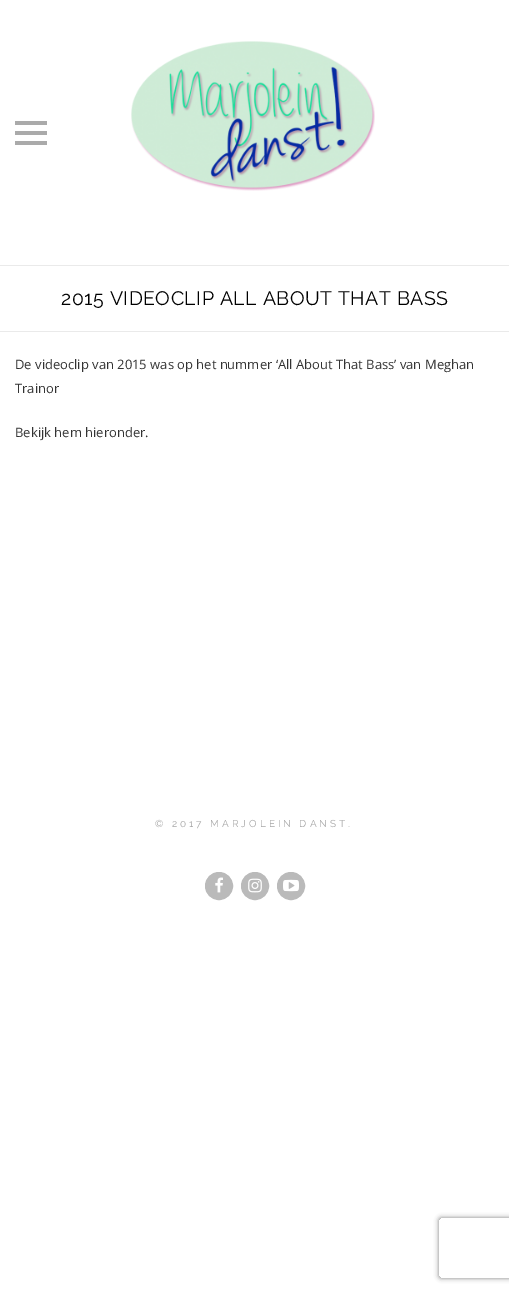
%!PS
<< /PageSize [509 1292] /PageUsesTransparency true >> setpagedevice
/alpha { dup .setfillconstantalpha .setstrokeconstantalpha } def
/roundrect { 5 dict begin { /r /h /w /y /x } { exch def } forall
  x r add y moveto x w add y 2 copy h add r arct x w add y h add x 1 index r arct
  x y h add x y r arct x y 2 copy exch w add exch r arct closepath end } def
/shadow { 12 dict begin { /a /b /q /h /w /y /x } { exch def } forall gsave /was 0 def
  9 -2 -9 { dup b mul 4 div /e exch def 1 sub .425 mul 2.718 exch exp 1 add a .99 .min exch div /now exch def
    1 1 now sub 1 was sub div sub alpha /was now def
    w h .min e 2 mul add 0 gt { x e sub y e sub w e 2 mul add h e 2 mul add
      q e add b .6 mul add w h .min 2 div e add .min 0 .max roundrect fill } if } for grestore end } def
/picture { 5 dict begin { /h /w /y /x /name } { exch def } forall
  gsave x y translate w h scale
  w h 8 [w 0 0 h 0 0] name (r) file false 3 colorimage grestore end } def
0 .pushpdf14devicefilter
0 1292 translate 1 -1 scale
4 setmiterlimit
1 setgray
0 0 509 1292 rectfill
0.918 setgray
0 265 509 1 rectfill
0.667 setgray
15 121 32 4 rectfill
15 131 32 4 rectfill
15 141 32 4 rectfill
(img1.rgb) 131 41 244 150 picture
0.918 setgray
0 331 509 1 rectfill
/Raleway-Regular [19.5 0 0 -19.5 0 0] selectfont
0 setgray
61 305 moveto 0.5 0 (2015 VIDEOCLIP ALL ABOUT THAT BASS) ashow
/OpenSans-Regular [13 0 0 -13 0 0] selectfont
0.2 setgray
15 369 moveto (De videoclip van 2015 was op het nummer ‘All About That Bass’ van Meghan) show
15 393 moveto (Trainor) show
15 437 moveto (Bekijk hem hieronder.) show
/Raleway-Regular [10 0 0 -10 0 0] selectfont
0.647 setgray
155 827 moveto 3 0 (© 2017 MARJOLEIN DANST.) ashow
0.729 setgray
newpath 219 886 13.5 0 360 arc closepath gsave fill grestore
stroke
(img2.rgb) 215 877 8 16 picture
newpath 255 886 13.5 0 360 arc closepath gsave fill grestore
stroke
(img3.rgb) 248 878 14 15 picture
newpath 291 886 13.5 0 360 arc closepath gsave fill grestore
stroke
(img4.rgb) 283 879 16 13 picture
gsave
newpath 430 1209 moveto 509 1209 lineto 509 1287 lineto 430 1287 lineto closepath 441 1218 moveto 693 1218 lineto 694 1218 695 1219 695 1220 curveto 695 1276 lineto 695 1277 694 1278 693 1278 curveto 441 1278 lineto 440 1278 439 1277 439 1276 curveto 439 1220 lineto 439 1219 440 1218 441 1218 curveto closepath eoclip newpath
0.502 setgray
439 1218 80 60 2 2.5 1 shadow
grestore
.poppdf14devicefilter showpage
